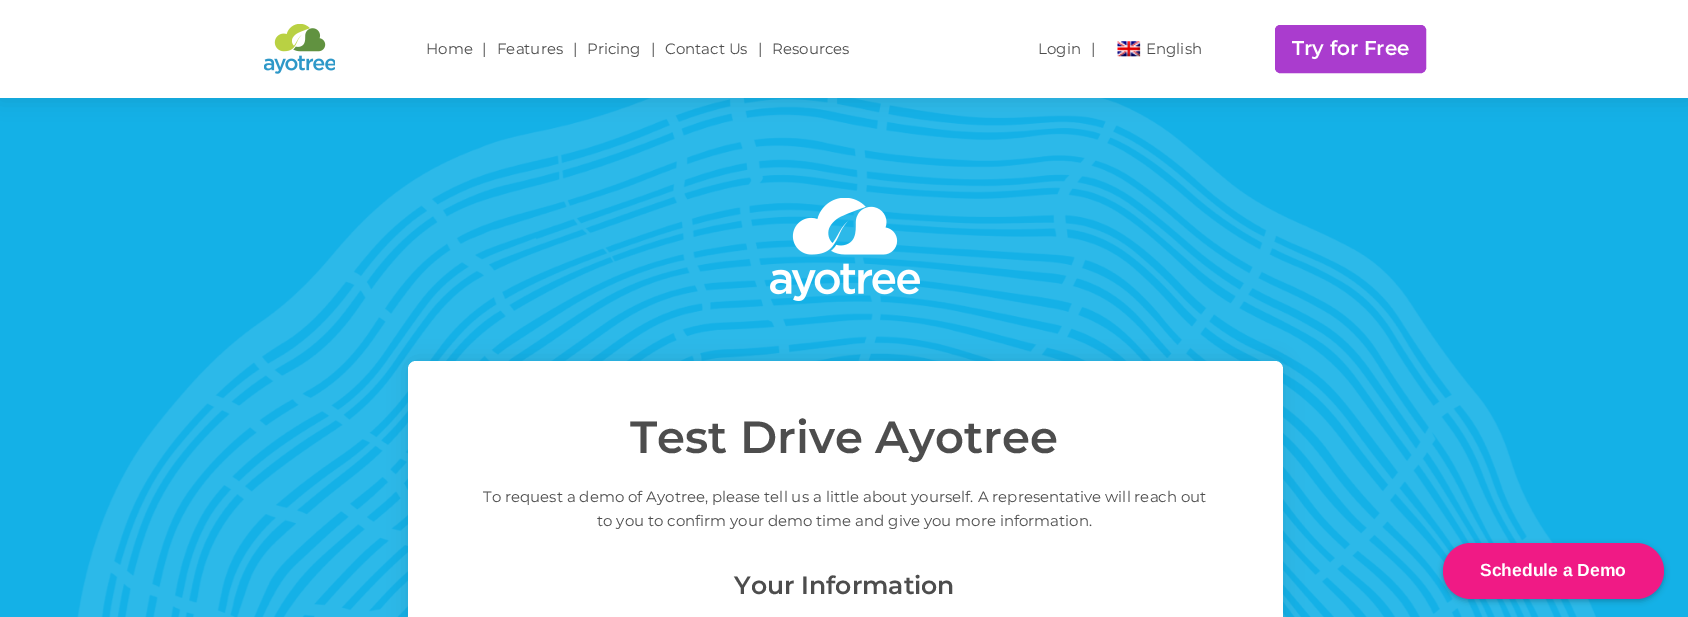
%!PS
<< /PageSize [1688 617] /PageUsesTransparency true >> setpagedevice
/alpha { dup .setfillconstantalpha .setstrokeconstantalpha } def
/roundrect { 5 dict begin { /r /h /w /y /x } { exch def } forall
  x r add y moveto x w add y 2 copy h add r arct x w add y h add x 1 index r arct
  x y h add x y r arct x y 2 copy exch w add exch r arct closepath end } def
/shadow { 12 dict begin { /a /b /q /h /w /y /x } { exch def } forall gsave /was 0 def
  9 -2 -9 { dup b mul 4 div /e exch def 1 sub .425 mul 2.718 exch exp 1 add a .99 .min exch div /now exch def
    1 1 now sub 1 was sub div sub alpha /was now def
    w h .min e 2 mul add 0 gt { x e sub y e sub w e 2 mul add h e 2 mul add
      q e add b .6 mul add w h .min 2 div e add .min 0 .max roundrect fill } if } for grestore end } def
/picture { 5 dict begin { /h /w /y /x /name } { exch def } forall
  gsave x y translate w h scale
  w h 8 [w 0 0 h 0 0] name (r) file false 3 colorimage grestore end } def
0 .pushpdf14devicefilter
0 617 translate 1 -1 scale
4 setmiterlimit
1 setgray
0 0 1688 617 rectfill
0.078 0.694 0.906 setrgbcolor
0 98 1688 519 rectfill
(img3.rgb) 77 98 1519 519 picture
gsave
newpath 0 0 moveto 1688 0 lineto 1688 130 lineto 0 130 lineto closepath 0 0 moveto 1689 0 lineto 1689 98 lineto 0 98 lineto closepath eoclip newpath
0 setgray
0 3 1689 97 0 9.5 0.1 shadow
grestore
(img1.rgb) 264 24 71 50 picture
1 setgray
356 97 1070 1 rectfill
/Montserrat-Regular [15 0 0 -15 0 0] selectfont
0.302 setgray
426 54 moveto (Home) show
482 54 moveto (|) show
497 54 moveto (Features) show
573 54 moveto (|) show
587 54 moveto (Pricing) show
651 54 moveto (|) show
665 54 moveto (Contact Us) show
758 54 moveto (|) show
772 54 moveto (Resources) show
1038 54 moveto (Login) show
1091 54 moveto (|) show
(img2.rgb) 1117 41 24 16 picture
1146 54 moveto (English) show
0.667 0.235 0.808 setrgbcolor
1275.5 25.5 150 47 4.5 roundrect gsave fill grestore
stroke
/Montserrat-SemiBold [20 0 0 -20 0 0] selectfont
1 setgray
1292 55 moveto (Try for Free) show
(img4.rgb) 770 198 150 103 picture
0 setgray
408 361 875 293 8 9.5 0.1 shadow
1 setgray
408 361 875 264 8 roundrect fill
/Montserrat-SemiBold [45 0 0 -45 0 0] selectfont
0.302 setgray
630 453 moveto (Test Drive Ayotree) show
/Montserrat-Regular [15 0 0 -15 0 0] selectfont
483 502 moveto (To request a demo of Ayotree, please tell us a little about yourself. A representative will reach out) show
597 526 moveto (to you to confirm your demo time and give you more information.) show
/Montserrat-SemiBold [25 0 0 -25 0 0] selectfont
734 594 moveto (Your Information) show
0 setgray
1443 545 221 56 28 3 0.25 shadow
0.941 0.102 0.522 setrgbcolor
1443 543 221 56 28 roundrect fill
/LiberationSans-Bold [17.5 0 0 -17.5 0 0] selectfont
1 setgray
1480 576 moveto (Schedule a Demo) show
.poppdf14devicefilter showpage
